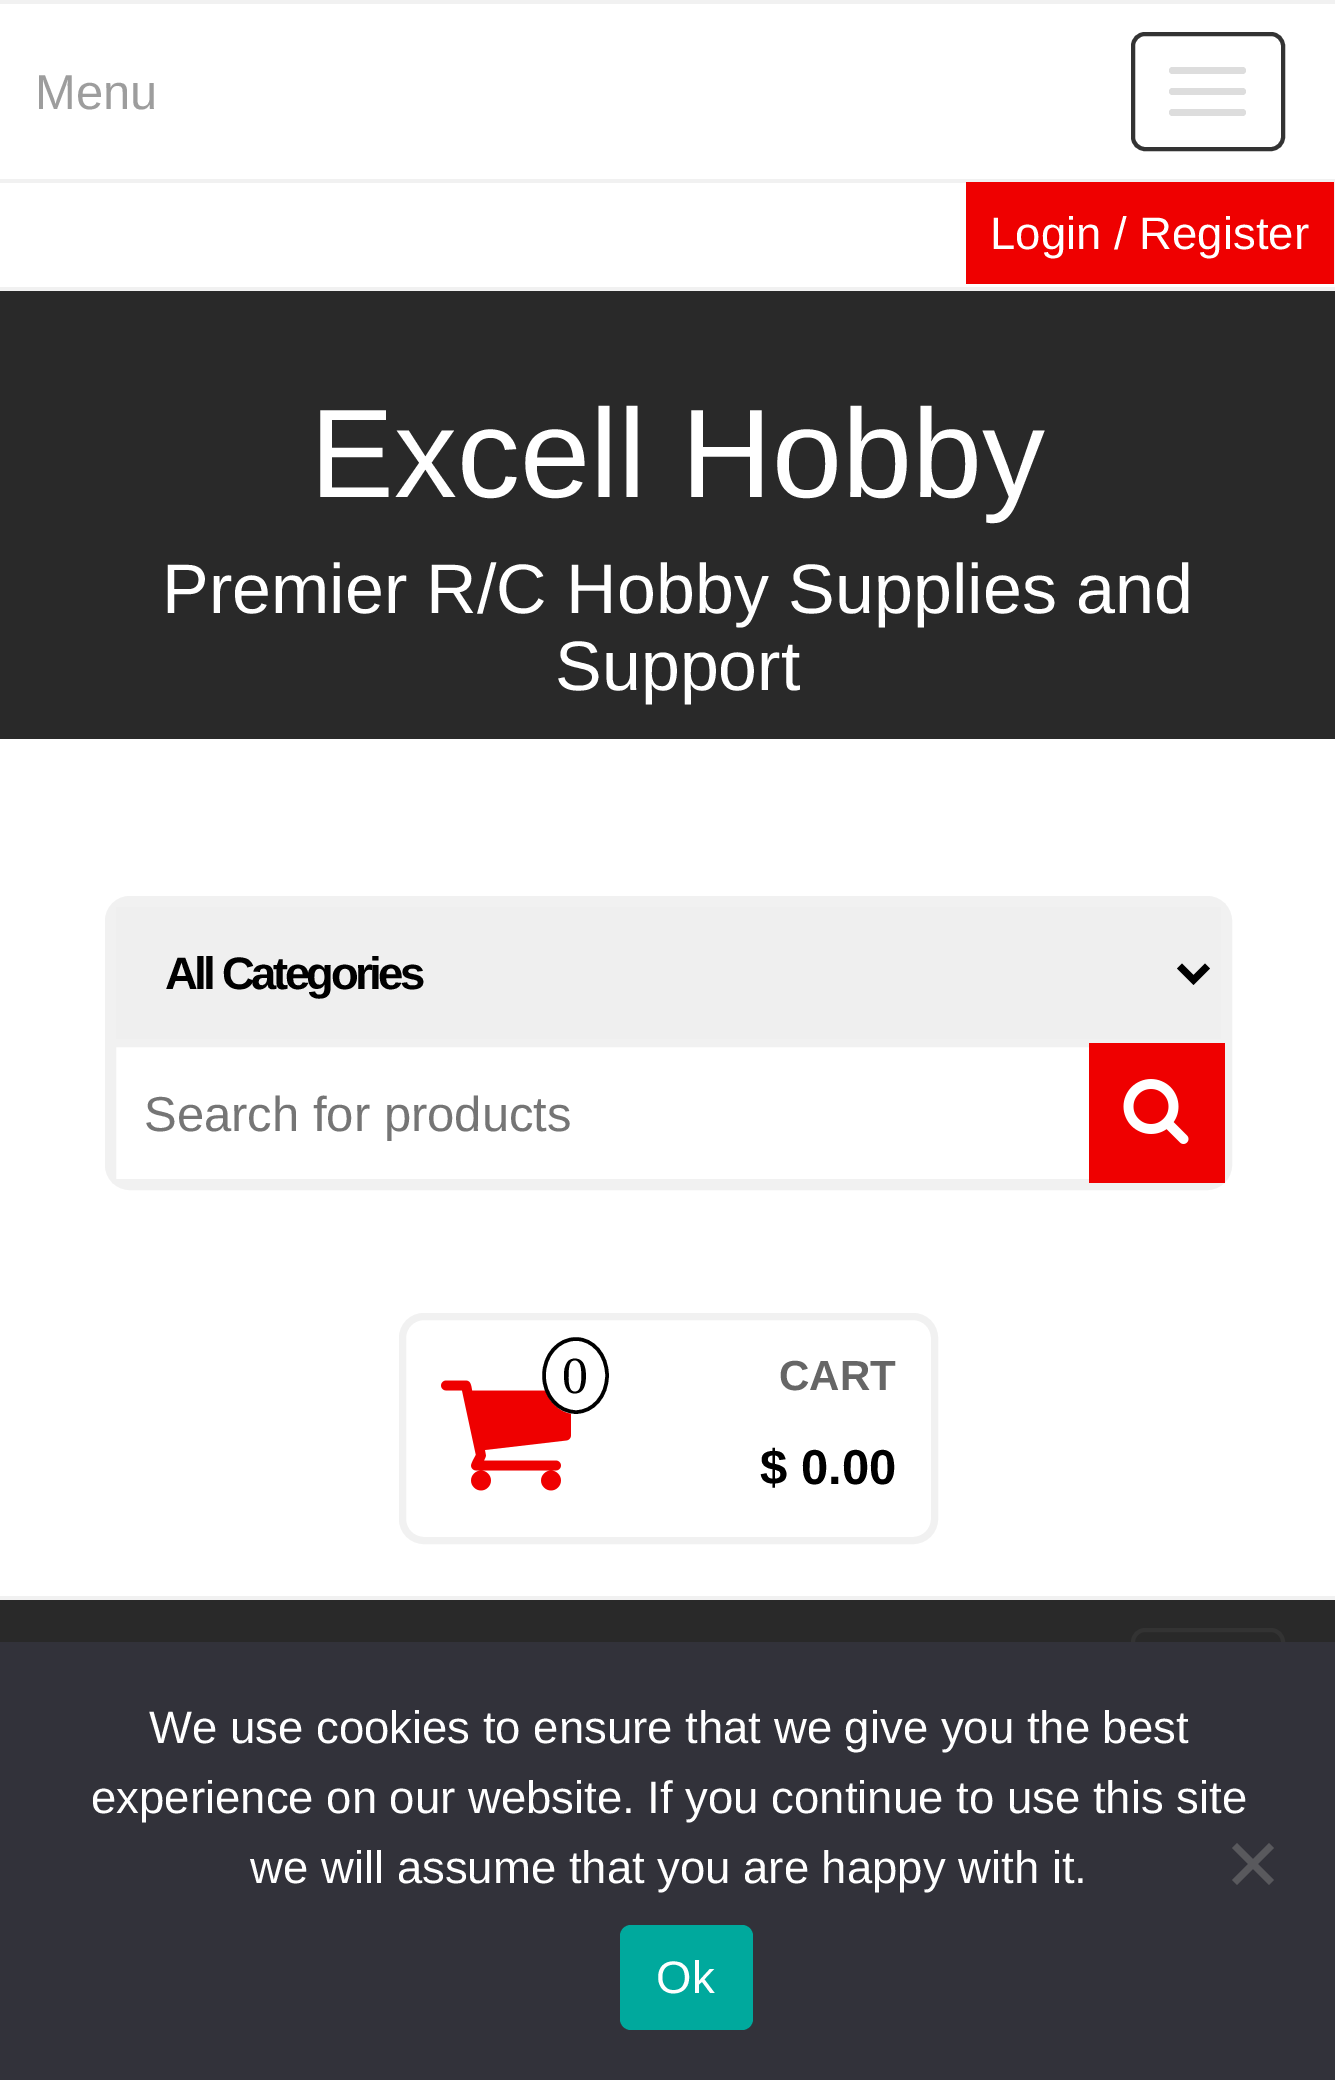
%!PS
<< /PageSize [1335 2080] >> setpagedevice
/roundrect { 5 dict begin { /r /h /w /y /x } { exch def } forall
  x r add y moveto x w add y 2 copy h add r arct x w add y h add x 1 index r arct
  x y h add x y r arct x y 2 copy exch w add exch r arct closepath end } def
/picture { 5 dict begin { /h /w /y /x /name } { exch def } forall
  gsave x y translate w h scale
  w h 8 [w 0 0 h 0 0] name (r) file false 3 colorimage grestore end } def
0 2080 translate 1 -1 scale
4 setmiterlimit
1 setgray
0 0 1335 2080 rectfill
0.945 setgray
0 287 1335 4 rectfill
0 0 1335 4 rectfill
0 179 1335 4 rectfill
/LiberationSans-Regular [49 0 0 -49 0 0] selectfont
0.616 setgray
35 109 moveto (Menu) show
0.2 setgray
4 setlinewidth
1133 34 150 115 12 roundrect stroke
0.867 setgray
1169 67 77 7 3.5 roundrect fill
1169 88 77 7 3.5 roundrect fill
1169 109 77 7 3.5 roundrect fill
0.937 0 0 setrgbcolor
966 182 368 102 rectfill
/LiberationSans-Regular [45.5 0 0 -45.5 0 0] selectfont
1 setgray
990 249 moveto (Login / Register) show
0.945 setgray
1334 182 1 102 rectfill
0.161 setgray
0 291 1335 1351 rectfill
/LiberationSans-Regular [126 0 0 -126 0 0] selectfont
1 setgray
310 497 moveto (Excell Hobby) show
/LiberationSans-Regular [70 0 0 -70 0 0] selectfont
162 613 moveto (Premier R/C Hobby Supplies and) show
555 690 moveto (Support) show
0 739 1335 857 rectfill
0.945 setgray
7 setlinewidth
108.5 899.5 1120 287 21.5 roundrect stroke
0.937 setgray
newpath 114 905 moveto 1223 905 lineto 1223 1041 lineto 114 1041 lineto closepath gsave fill grestore
0.945 setgray
4 setlinewidth
stroke
0 setgray
7 setlinewidth
newpath 1179.5 966 moveto 1193.5 980 lineto 1207.5 966 lineto stroke
/LiberationSans-Bold [45.5 0 0 -45.5 0 0] selectfont
165 989 moveto -3.5 0 (All Categories) ashow
1 setgray
116 1176 3 3 rectfill
0.945 setgray
4 setlinewidth
114 1045 1109 136 rectstroke
gsave
144 1085 1050 56 rectclip
/LiberationSans-Regular [49 0 0 -49 0 0] selectfont
0.459 setgray
144 1131 moveto (Search for products) show
grestore
0.937 0 0 setrgbcolor
1089 1043 136 140 rectfill
(img1.rgb) 1123 1079 66 65 picture
0.945 setgray
7 setlinewidth
402.5 1316.5 532 224 21.5 roundrect stroke
(img2.rgb) 441 1380 130 111 picture
1 setgray
newpath 576 1337 moveto 594 1337 609 1354 609 1375.5 curveto 609 1397 594 1414 576 1414 curveto 558 1414 543 1397 543 1375.5 curveto 543 1354 558 1337 576 1337 curveto closepath fill
0 setgray
3.5 setlinewidth
newpath 576 1339 moveto 593 1339 607 1355 607 1375.5 curveto 607 1396 593 1412 576 1412 curveto 558.5 1412 544 1396 544 1375.5 curveto 544 1355 558.5 1339 576 1339 curveto closepath stroke
/LiberationSerif-Regular [52 0 0 -52 0 0] selectfont
562 1393 moveto (0) show
/LiberationSans-Bold [42 0 0 -42 0 0] selectfont
0.4 setgray
779 1390 moveto (CART) show
/LiberationSans-Bold [49 0 0 -49 0 0] selectfont
0 setgray
760 1484 moveto ($ 0.00) show
0.945 setgray
0 1596 1335 4 rectfill
0.2 setgray
4 setlinewidth
1133 1630 150 115 12 roundrect stroke
0.196 0.196 0.227 setrgbcolor
0 1642 1335 438 rectfill
/LiberationSans-Regular [45.5 0 0 -45.5 0 0] selectfont
1 setgray
149 1743 moveto (We use cookies to ensure that we give you the best) show
91 1813 moveto (experience on our website. If you continue to use this site) show
250 1883 moveto (we will assume that you are happy with it.) show
0.349 0.349 0.365 setrgbcolor
newpath 1269 1843 moveto 1274 1848 lineto 1237 1885 lineto 1232 1880 lineto closepath fill
newpath 1232 1848 moveto 1237 1843 lineto 1274 1880 lineto 1269 1885 lineto closepath fill
0 0.663 0.616 setrgbcolor
620 1925 133 105 11 roundrect fill
1 setgray
656 1993 moveto 1 0 (Ok) ashow
showpage
